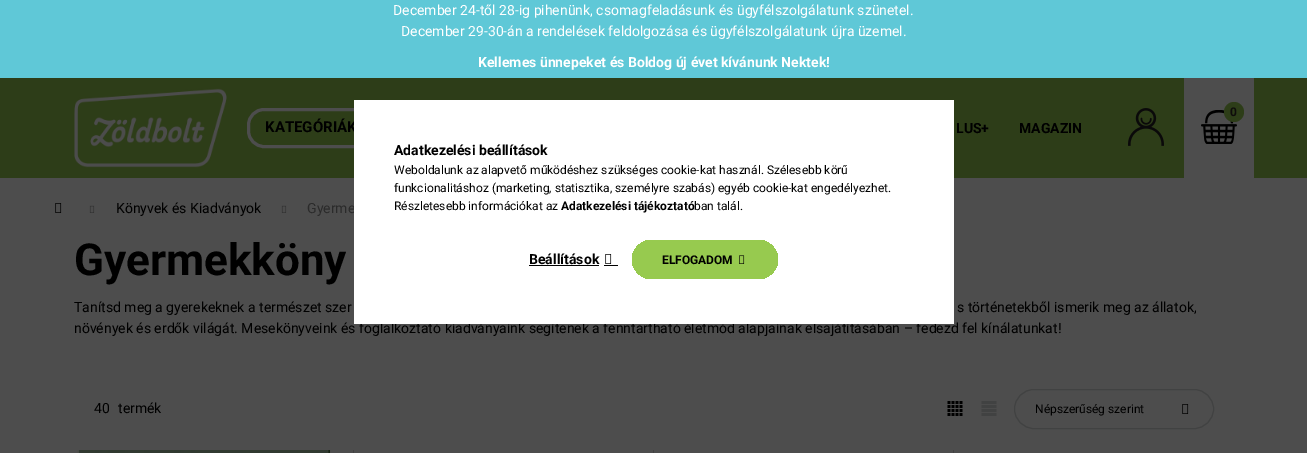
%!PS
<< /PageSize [1307 453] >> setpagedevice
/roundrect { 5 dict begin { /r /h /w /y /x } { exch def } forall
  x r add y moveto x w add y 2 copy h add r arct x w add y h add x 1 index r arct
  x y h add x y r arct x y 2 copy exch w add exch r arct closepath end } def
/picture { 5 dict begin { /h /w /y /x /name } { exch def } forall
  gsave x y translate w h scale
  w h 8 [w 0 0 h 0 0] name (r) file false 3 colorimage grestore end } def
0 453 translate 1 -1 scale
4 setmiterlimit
0.302 setgray
0 0 1307 453 rectfill
0.373 0.784 0.843 setrgbcolor
0 0 1307 78 rectfill
/Roboto-Regular [14 0 0 -14 0 0] selectfont
1 setgray
393 15 moveto (December 24-től 28-ig pihenünk, csomagfeladásunk és ügyfélszolgálatunk szünetel.) show
401 36 moveto (December 29-30-án a rendelések feldolgozása és ügyfélszolgálatunk újra üzemel.) show
/Roboto-Bold [14 0 0 -14 0 0] selectfont
478 67 moveto (Kellemes ünnepeket és Boldog új évet kívánunk Nektek!) show
0.176 0.239 0.094 setrgbcolor
0 78 1307 100 rectfill
(img1.rgb) 74 88 153 80 picture
0.302 setgray
3 setlinewidth
248.5 109.5 124 37 15.5 roundrect stroke
/Roboto-Bold [15 0 0 -15 0 0] selectfont
0 setgray
265 132 moveto (KATEGÓRIÁK) show
/Roboto-Bold [14 0 0 -14 0 0] selectfont
956 133 moveto (LUS+) show
1019 133 moveto (MAGAZIN) show
(img2.rgb) 1128 108 36 38 picture
0.302 setgray
1184 78 70 100 rectfill
(img3.rgb) 1201 110 36 34 picture
0.176 0.239 0.094 setrgbcolor
newpath 1234 112 10 0 360 arc closepath fill
/Roboto-Bold [12 0 0 -12 0 0] selectfont
0.055 0.047 0.043 setrgbcolor
1230 116 moveto (0) show
(img4.rgb) 55 203 7 10 picture
(img5.rgb) 89 205 6 8 picture
/Roboto-Regular [14 0 0 -14 0 0] selectfont
0 setgray
116 213 moveto (Könyvek és Kiadványok) show
(img5.rgb) 281 205 6 8 picture
0.169 setgray
307 213 moveto (Gyerme) show
/Roboto-Bold [44 0 0 -44 0 0] selectfont
0 setgray
74 275 moveto (Gyermekköny) show
/Roboto-Regular [14 0 0 -14 0 0] selectfont
74 312 moveto (Tanítsd meg a gyerekeknek a természet szer) show
957 312 moveto (s történetekből ismerik meg az állatok,) show
74 333 moveto (növények és erdők világát. Mesekönyveink és foglalkoztató kiadványaink segítenek a fenntartható életmód alapjainak elsajátításában – fedezd fel kínálatunkat!) show
94 413 moveto (40) show
118 413 moveto (termék) show
(img6.rgb) 947 401 16 15 picture
(img7.rgb) 981 401 16 15 picture
0.255 0.259 0.259 setrgbcolor
1 setlinewidth
1014.5 389.5 199 39 19.5 roundrect stroke
/Roboto-Regular [12 0 0 -12 0 0] selectfont
0 setgray
1035 413 moveto (Népszerűség szerint) show
(img4.rgb) 1182 404 7 10 picture
(img8.rgb) 77 450 254 3 picture
0.255 0.259 0.259 setrgbcolor
353 449 1 4 rectfill
653 449 1 4 rectfill
953 449 1 4 rectfill
0.302 setgray
353 449 601 1 rectfill
1 setgray
354 100 600 224 rectfill
/Roboto-Bold [14 0 0 -14 0 0] selectfont
0 setgray
394 155 moveto (Adatkezelési beállítások) show
/Roboto-Regular [12 0 0 -12 0 0] selectfont
394 174 moveto (Weboldalunk az alapvető működéshez szükséges cookie-kat használ. Szélesebb körű) show
394 192 moveto (funkcionalitáshoz \(marketing, statisztika, személyre szabás\) egyéb cookie-kat engedélyezhet.) show
394 210 moveto (Részletesebb információkat az) show
/Roboto-Bold [12 0 0 -12 0 0] selectfont
561 210 moveto (Adatkezelési tájékoztató) show
/Roboto-Regular [12 0 0 -12 0 0] selectfont
694 210 moveto (ban talál.) show
/Roboto-Bold [14 0 0 -14 0 0] selectfont
529 264 moveto (Beállítások) show
529 265 70 1 rectfill
(img9.rgb) 605 254 7 10 picture
604 265 14 1 rectfill
gsave 632 240 146 39 19.5 roundrect clip newpath
<< /ShadingType 2 /ColorSpace /DeviceRGB /Coords [632 260 1070 260] /Extend [true true] /Function << /FunctionType 3 /Domain [0 1] /Functions [<< /FunctionType 2 /Domain [0 1] /C0 [0.592 0.792 0.31] /C1 [0.592 0.792 0.31] /N 1 >> << /FunctionType 2 /Domain [0 1] /C0 [0.592 0.792 0.31] /C1 [0 0 0] /N 1 >> << /FunctionType 2 /Domain [0 1] /C0 [0 0 0] /C1 [0 0 0] /N 1 >>] /Bounds [0.33 0.67] /Encode [0 1 0 1 0 1] >> >> shfill grestore
/Roboto-Bold [12 0 0 -12 0 0] selectfont
662 264 moveto (ELFOGADOM) show
(img10.rgb) 739 255 6 9 picture
showpage
